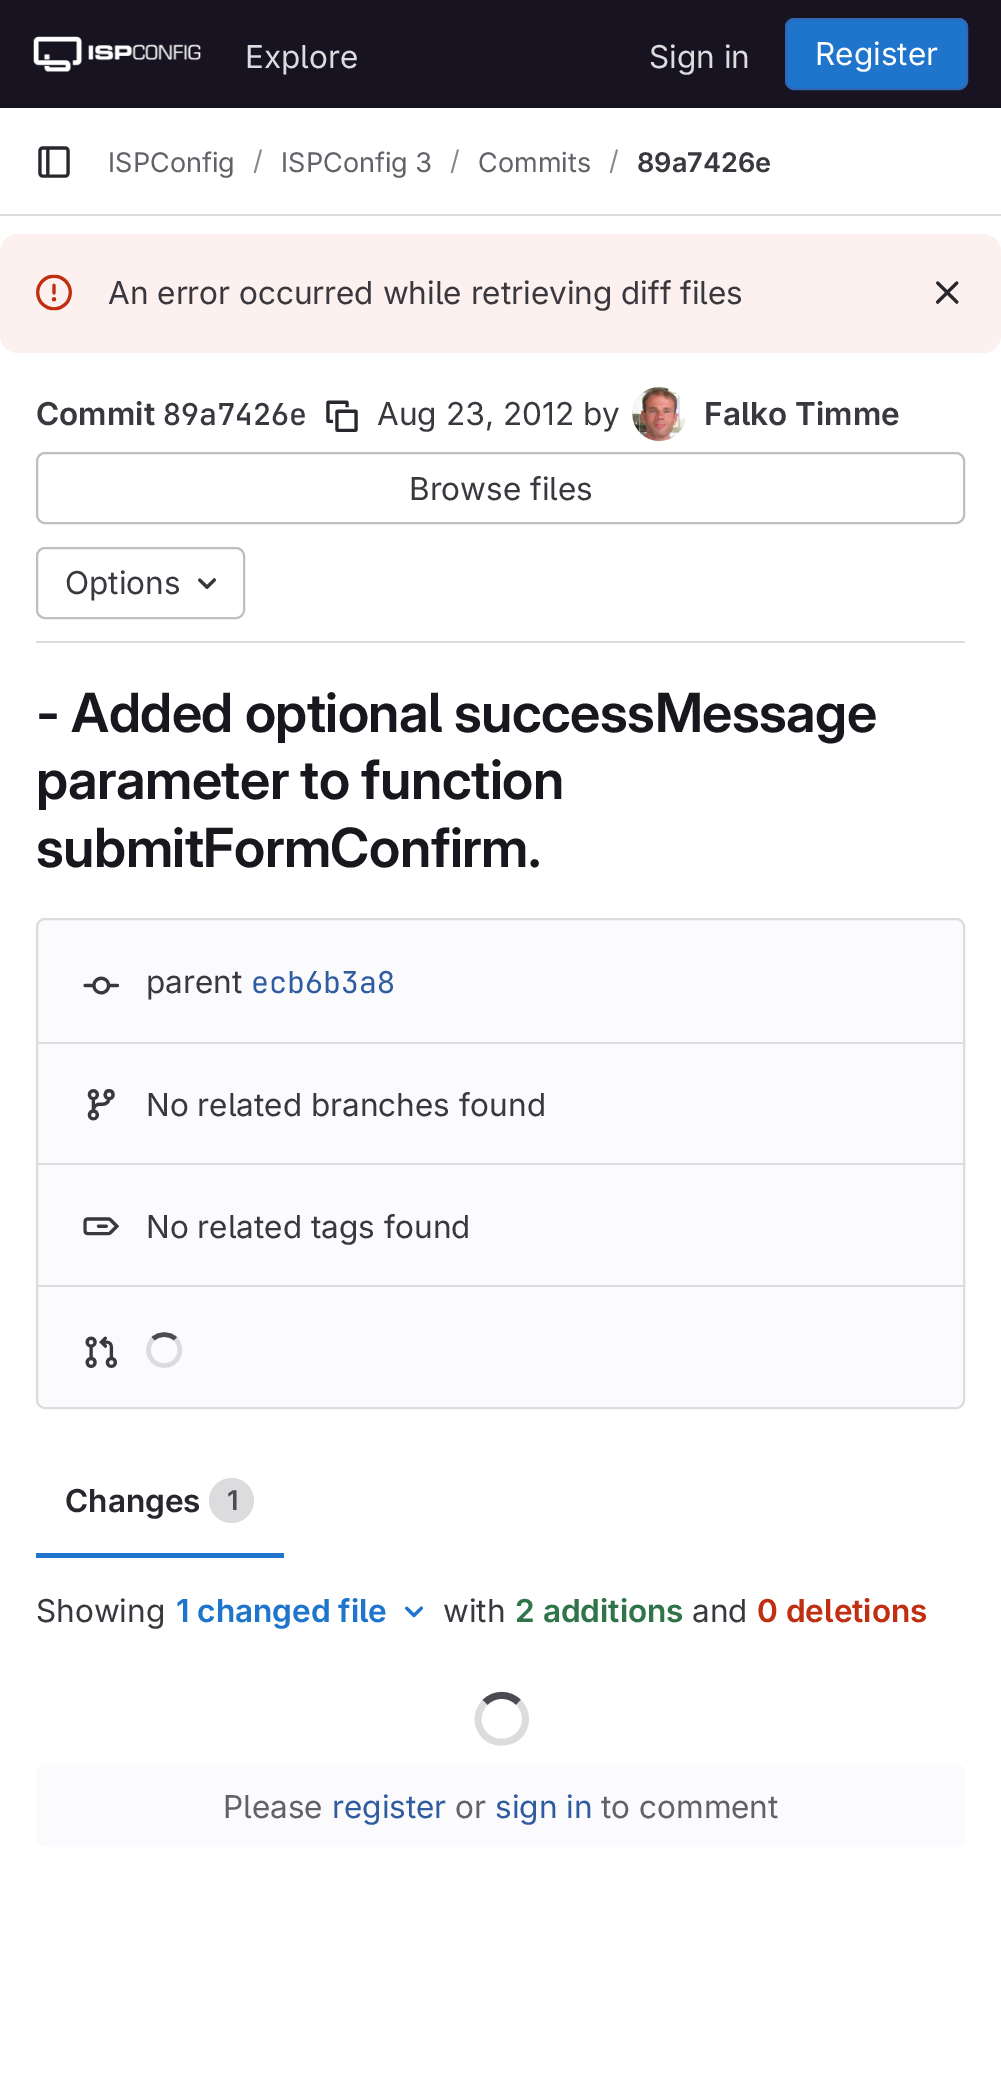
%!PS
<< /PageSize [1001 2100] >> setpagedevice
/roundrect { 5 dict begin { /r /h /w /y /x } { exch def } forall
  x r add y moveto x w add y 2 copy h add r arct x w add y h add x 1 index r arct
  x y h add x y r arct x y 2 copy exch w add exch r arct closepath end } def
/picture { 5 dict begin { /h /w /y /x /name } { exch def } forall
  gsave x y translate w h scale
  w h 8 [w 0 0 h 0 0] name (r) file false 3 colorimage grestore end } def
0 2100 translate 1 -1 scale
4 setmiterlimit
1 setgray
0 0 1001 2100 rectfill
0.09 0.075 0.129 setrgbcolor
0 0 1001 108 rectfill
(img1.rgb) 33 36 168 36 picture
/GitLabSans-Regular [31.5 0 0 -31.5 0 0] selectfont
0.863 0.863 0.871 setrgbcolor
245 68 moveto (Explore) show
649 68 moveto (Sign in) show
0.122 0.459 0.796 setrgbcolor
786 19 181 70 8 roundrect gsave fill grestore
0.184 0.408 0.706 setrgbcolor
2 setlinewidth
stroke
1 setgray
815 65 moveto (Register) show
0.863 0.863 0.871 setrgbcolor
0 214 1001 2 rectfill
(img2.rgb) 38 146 32 32 picture
/GitLabSans-Regular [27 0 0 -27 0 0] selectfont
0.384 0.38 0.408 setrgbcolor
108 172 moveto (ISPConfig) show
0.537 0.533 0.553 setrgbcolor
253 170 moveto (/) show
0.384 0.38 0.408 setrgbcolor
281 172 moveto (ISPConfig 3) show
0.537 0.533 0.553 setrgbcolor
450 170 moveto (/) show
0.384 0.38 0.408 setrgbcolor
478 172 moveto (Commits) show
0.537 0.533 0.553 setrgbcolor
609 170 moveto (/) show
/GitLabSans-SemiBold [27 0 0 -27 0 0] selectfont
0.227 0.22 0.247 setrgbcolor
637 172 moveto (89a7426e) show
0.988 0.945 0.937 setrgbcolor
0 234 1001 119 18 roundrect fill
(img3.rgb) 36 274 36 37 picture
/GitLabSans-Regular [31.5 0 0 -31.5 0 0] selectfont
0.227 0.22 0.247 setrgbcolor
108 304 moveto (An error occurred while retrieving diff files) show
(img4.rgb) 936 281 23 23 picture
/GitLabSans-SemiBold [31.5 0 0 -31.5 0 0] selectfont
36 425 moveto (Commit) show
/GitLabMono-SemiBold [30 0 0 -30 0 0] selectfont
163 425 moveto (89a7426e) show
(img5.rgb) 326 400 32 32 picture
/GitLabSans-Regular [31.5 0 0 -31.5 0 0] selectfont
377 425 moveto (Aug 23, 2012 by) show
0.91 0.906 0.914 setrgbcolor
newpath 659 414 26 0 360 arc closepath stroke
(img6.rgb) 632 387 54 54 picture
/GitLabSans-SemiBold [31.5 0 0 -31.5 0 0] selectfont
0.227 0.22 0.247 setrgbcolor
704 425 moveto (Falko Timme) show
0.749 0.749 0.765 setrgbcolor
37 453 927 70 8 roundrect stroke
/GitLabSans-Regular [31.5 0 0 -31.5 0 0] selectfont
0.227 0.22 0.247 setrgbcolor
409 500 moveto (Browse files) show
0.749 0.749 0.765 setrgbcolor
37 548 207 70 8 roundrect stroke
0.227 0.22 0.247 setrgbcolor
65 594 moveto (Options) show
(img7.rgb) 198 578 18 11 picture
0.863 0.863 0.871 setrgbcolor
36 641 929 2 rectfill
/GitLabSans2-SemiBold [54 0 0 -54 0 0] selectfont
0.094 0.09 0.114 setrgbcolor
36 732 moveto -0.55 0 (- Added optional successMessage) ashow
36 799 moveto -0.55 0 (parameter to function) ashow
36 867 moveto -0.55 0 (submitFormConfirm.) ashow
0.984 0.98 0.992 setrgbcolor
37 919 927 489 8 roundrect gsave fill grestore
0.863 0.863 0.871 setrgbcolor
stroke
(img8.rgb) 83 976 37 19 picture
/GitLabSans-Regular [31.5 0 0 -31.5 0 0] selectfont
0.227 0.22 0.247 setrgbcolor
146 993 moveto (parent) show
/GitLabMono-Regular [30 0 0 -30 0 0] selectfont
0.184 0.361 0.627 setrgbcolor
251 993 moveto (ecb6b3a8) show
0.863 0.863 0.871 setrgbcolor
38 1042 925 2 rectfill
(img9.rgb) 87 1089 28 32 picture
/GitLabSans-Regular [31.5 0 0 -31.5 0 0] selectfont
0.227 0.22 0.247 setrgbcolor
146 1116 moveto (No related branches found) show
0.863 0.863 0.871 setrgbcolor
38 1163 925 2 rectfill
(img10.rgb) 83 1217 36 19 picture
0.227 0.22 0.247 setrgbcolor
146 1238 moveto (No related tags found) show
0.863 0.863 0.871 setrgbcolor
38 1285 925 2 rectfill
(img11.rgb) 85 1336 32 32 picture
0.298 0.294 0.318 setrgbcolor
4.5 setlinewidth
newpath 153 1339 moveto 159 1333 169.5 1333 175.5 1339 curveto stroke
0.863 0.863 0.871 setrgbcolor
newpath 175.5 1339 moveto 179 1342.5 180.5 1348 179.5 1353 curveto 176 1371.5 148.5 1369 148.5 1350 curveto 148.5 1346 150 1342 153 1339 curveto stroke
/GitLabSans-SemiBold [31.5 0 0 -31.5 0 0] selectfont
0.157 0.153 0.176 setrgbcolor
65 1512 moveto (Changes) show
0.863 0.863 0.871 setrgbcolor
newpath 231.5 1500.5 22.5 0 360 arc closepath fill
/GitLabSans-SemiBold [27 0 0 -27 0 0] selectfont
0.298 0.294 0.318 setrgbcolor
227 1510 moveto (1) show
0.122 0.459 0.796 setrgbcolor
36 1553 248 5 rectfill
/GitLabSans-Regular [31.5 0 0 -31.5 0 0] selectfont
0.227 0.22 0.247 setrgbcolor
36 1622 moveto (Showing) show
/GitLabSans-SemiBold [31.5 0 0 -31.5 0 0] selectfont
0.122 0.459 0.796 setrgbcolor
176 1622 moveto (1 changed file) show
(img12.rgb) 405 1606 19 12 picture
/GitLabSans-Regular [31.5 0 0 -31.5 0 0] selectfont
0.227 0.22 0.247 setrgbcolor
443 1622 moveto (with) show
/GitLabSans-SemiBold [31.5 0 0 -31.5 0 0] selectfont
0.184 0.459 0.286 setrgbcolor
515 1622 moveto (2 additions) show
/GitLabSans-Regular [31.5 0 0 -31.5 0 0] selectfont
0.227 0.22 0.247 setrgbcolor
692 1622 moveto (and) show
/GitLabSans-SemiBold [31.5 0 0 -31.5 0 0] selectfont
0.753 0.184 0.071 setrgbcolor
757 1622 moveto (0 deletions) show
0.298 0.294 0.318 setrgbcolor
6.8 setlinewidth
newpath 485 1702.5 moveto 494 1693 509.5 1693 518.5 1702.5 curveto stroke
0.863 0.863 0.871 setrgbcolor
newpath 518.5 1702.5 moveto 523 1706.5 525.5 1713 525.5 1719 curveto 525.5 1747 484 1751 478.5 1723.5 curveto 477 1716 479.5 1708 485 1702.5 curveto stroke
0.984 0.98 0.992 setrgbcolor
36 1764 929 83 9 roundrect fill
/GitLabSans-Regular [31.5 0 0 -31.5 0 0] selectfont
0.384 0.38 0.408 setrgbcolor
223 1818 moveto (Please) show
0.184 0.361 0.627 setrgbcolor
332 1818 moveto (register) show
0.384 0.38 0.408 setrgbcolor
455 1818 moveto (or) show
0.184 0.361 0.627 setrgbcolor
495 1818 moveto (sign in) show
0.384 0.38 0.408 setrgbcolor
601 1818 moveto (to comment) show
showpage
